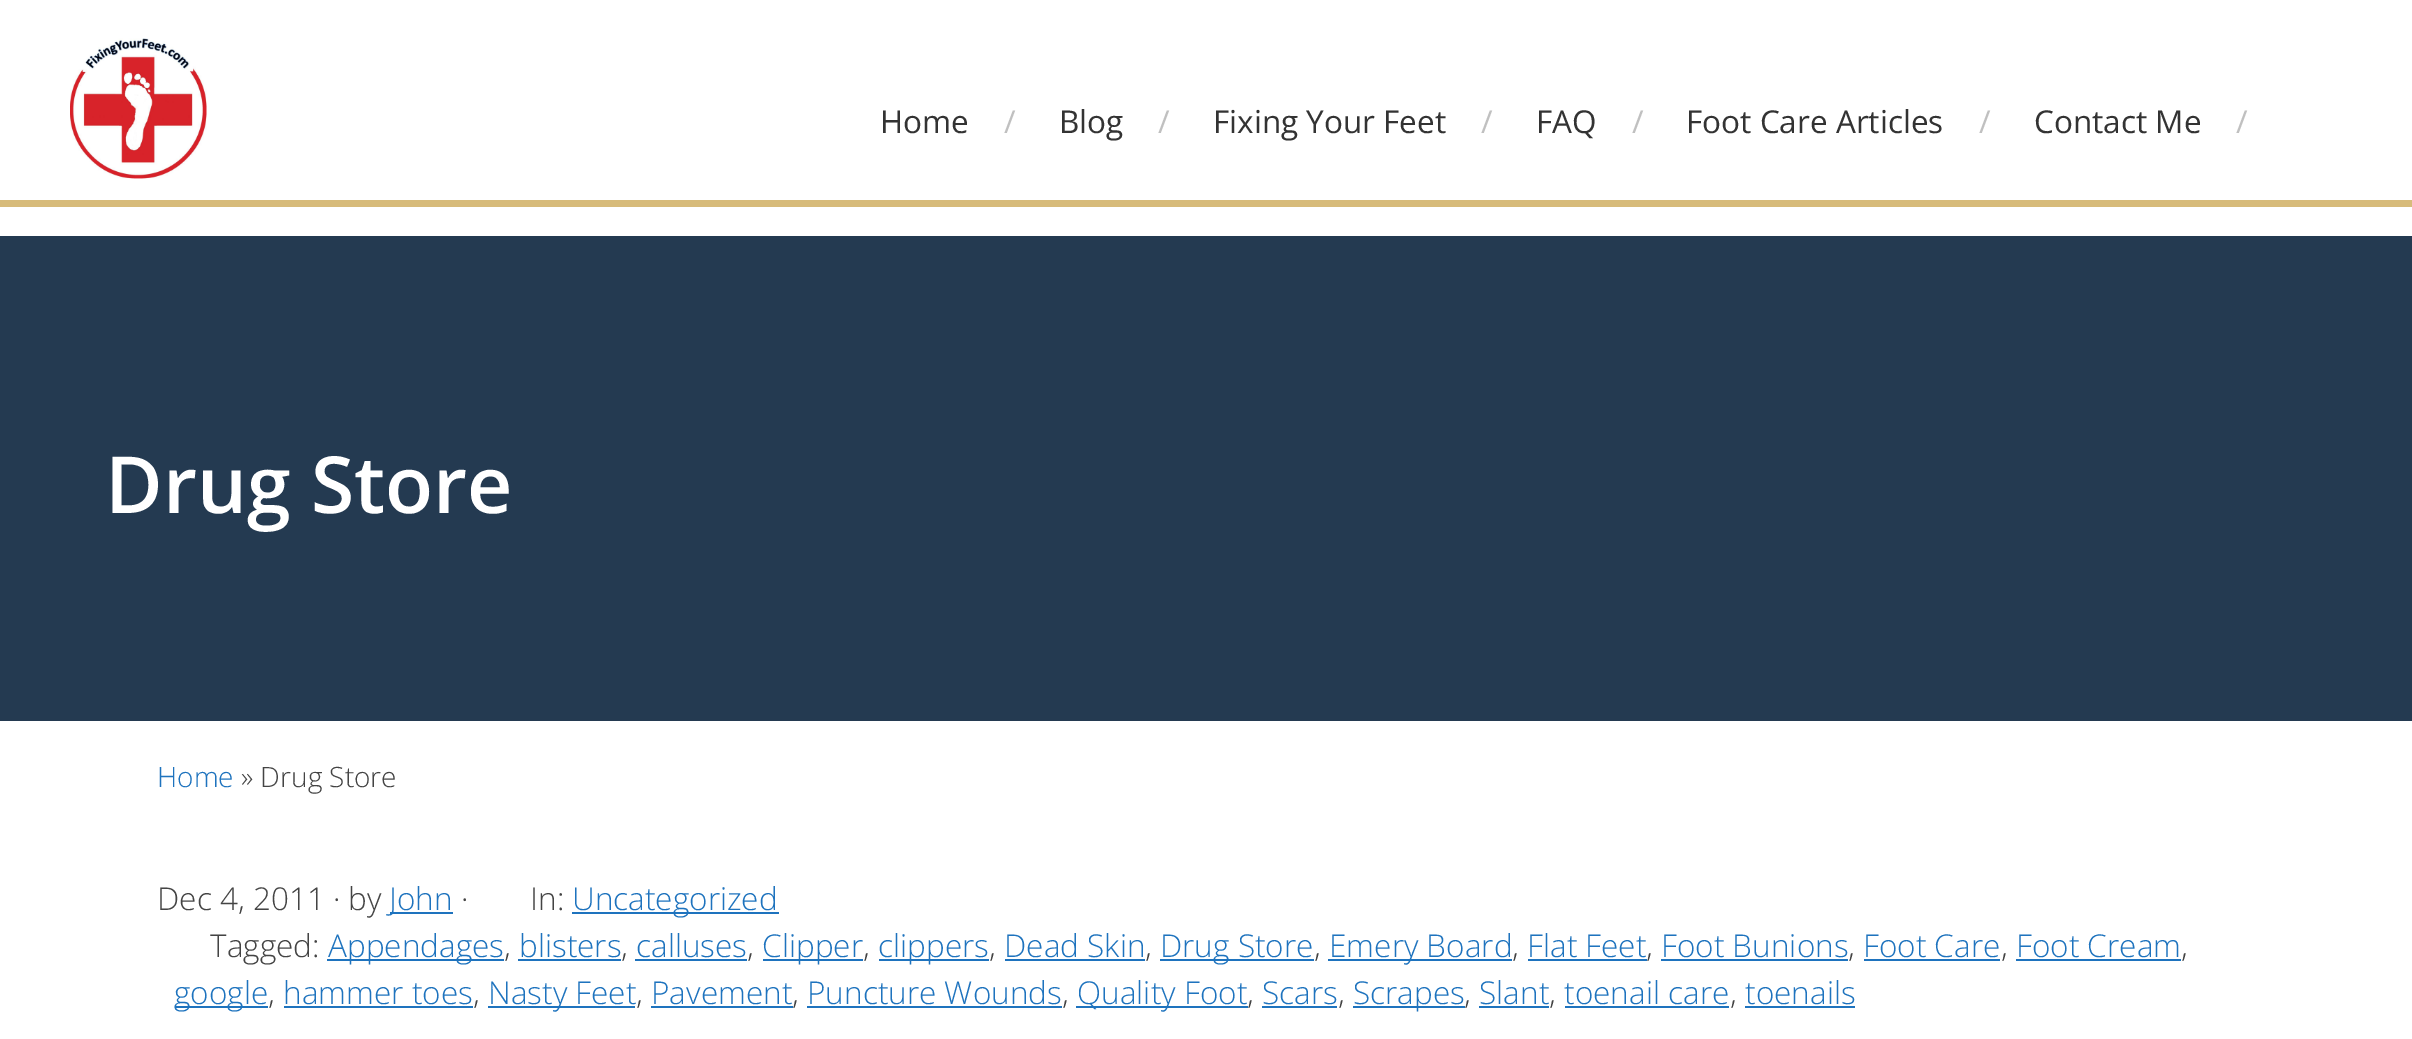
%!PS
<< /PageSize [2412 1039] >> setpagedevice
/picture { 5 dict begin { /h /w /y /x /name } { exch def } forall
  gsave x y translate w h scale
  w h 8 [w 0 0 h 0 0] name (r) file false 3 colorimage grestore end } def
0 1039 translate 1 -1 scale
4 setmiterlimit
1 setgray
0 0 2412 1039 rectfill
0.843 0.733 0.478 setrgbcolor
0 200 2412 7 rectfill
(img1.rgb) 70 38 137 141 picture
/OpenSans-Regular [31.5 0 0 -31.5 0 0] selectfont
0.2 setgray
880 133 moveto (Home) show
0.753 setgray
1004 133 moveto (/) show
0.2 setgray
1059 133 moveto (Blog) show
0.753 setgray
1158 133 moveto (/) show
0.2 setgray
1213 133 moveto (Fixing Your Feet) show
0.753 setgray
1481 133 moveto (/) show
0.2 setgray
1536 133 moveto (FAQ) show
0.753 setgray
1632 133 moveto (/) show
0.2 setgray
1686 133 moveto (Foot Care Articles) show
0.753 setgray
1979 133 moveto (/) show
0.2 setgray
2034 133 moveto (Contact Me) show
0.753 setgray
2236 133 moveto (/) show
0.141 0.227 0.318 setrgbcolor
0 236 2412 485 rectfill
/OpenSans-SemiBold [78.75 0 0 -78.75 0 0] selectfont
1 setgray
105 513 moveto (Drug Store) show
/OpenSans-Light [28 0 0 -28 0 0] selectfont
0.118 0.451 0.745 setrgbcolor
157 787 moveto (Home) show
0.267 setgray
241 787 moveto (» Drug Store) show
/OpenSans-Light [31.5 0 0 -31.5 0 0] selectfont
157 910 moveto (Dec 4, 2011 · by) show
0.118 0.451 0.745 setrgbcolor
390 912 63 2 rectfill
389 910 moveto (John) show
0.267 setgray
461 910 moveto (·) show
530 910 moveto (In:) show
0.118 0.451 0.745 setrgbcolor
572 912 207 2 rectfill
572 910 moveto (Uncategorized) show
0.267 setgray
210 957 moveto (Tagged:) show
0.118 0.451 0.745 setrgbcolor
327 959 177 2 rectfill
328 957 moveto (Appendages) show
0.267 setgray
504 957 moveto (,) show
0.118 0.451 0.745 setrgbcolor
519 957 moveto (blisters) show
518 959 103 2 rectfill
0.267 setgray
621 957 moveto (,) show
0.118 0.451 0.745 setrgbcolor
636 957 moveto (calluses) show
635 959 112 2 rectfill
0.267 setgray
747 957 moveto (,) show
0.118 0.451 0.745 setrgbcolor
763 959 100 2 rectfill
762 957 moveto (Clipper) show
0.267 setgray
863 957 moveto (,) show
0.118 0.451 0.745 setrgbcolor
879 959 110 2 rectfill
878 957 moveto (clippers) show
0.267 setgray
989 957 moveto (,) show
0.118 0.451 0.745 setrgbcolor
1004 957 moveto (Dead Skin) show
1005 959 140 2 rectfill
0.267 setgray
1145 957 moveto (,) show
0.118 0.451 0.745 setrgbcolor
1160 959 154 2 rectfill
1160 957 moveto (Drug Store) show
0.267 setgray
1314 957 moveto (,) show
0.118 0.451 0.745 setrgbcolor
1328 959 184 2 rectfill
1329 957 moveto (Emery Board) show
0.267 setgray
1512 957 moveto (,) show
0.118 0.451 0.745 setrgbcolor
1527 957 moveto (Flat Feet) show
1528 959 119 2 rectfill
0.267 setgray
1646 957 moveto (,) show
0.118 0.451 0.745 setrgbcolor
1661 957 moveto (Foot Bunions) show
1661 959 187 2 rectfill
0.267 setgray
1848 957 moveto (,) show
0.118 0.451 0.745 setrgbcolor
1863 957 moveto (Foot Care) show
1864 959 136 2 rectfill
0.267 setgray
2001 957 moveto (,) show
0.118 0.451 0.745 setrgbcolor
2016 957 moveto (Foot Cream) show
2016 959 165 2 rectfill
0.267 setgray
2181 957 moveto (,) show
0.118 0.451 0.745 setrgbcolor
175 1006 93 2 rectfill
174 1004 moveto (google) show
0.267 setgray
268 1004 moveto (,) show
0.118 0.451 0.745 setrgbcolor
283 1004 moveto (hammer toes) show
284 1006 189 2 rectfill
0.267 setgray
473 1004 moveto (,) show
0.118 0.451 0.745 setrgbcolor
488 1006 147 2 rectfill
488 1004 moveto (Nasty Feet) show
0.267 setgray
636 1004 moveto (,) show
0.118 0.451 0.745 setrgbcolor
651 1004 moveto (Pavement) show
651 1006 142 2 rectfill
0.267 setgray
792 1004 moveto (,) show
0.118 0.451 0.745 setrgbcolor
807 1004 moveto (Puncture Wounds) show
807 1006 255 2 rectfill
0.267 setgray
1062 1004 moveto (,) show
0.118 0.451 0.745 setrgbcolor
1076 1006 172 2 rectfill
1077 1004 moveto (Quality Foot) show
0.267 setgray
1247 1004 moveto (,) show
0.118 0.451 0.745 setrgbcolor
1262 1004 moveto (Scars) show
1262 1006 75 2 rectfill
0.267 setgray
1338 1004 moveto (,) show
0.118 0.451 0.745 setrgbcolor
1353 1006 112 2 rectfill
1353 1004 moveto (Scrapes) show
0.267 setgray
1464 1004 moveto (,) show
0.118 0.451 0.745 setrgbcolor
1479 1004 moveto (Slant) show
1479 1006 70 2 rectfill
0.267 setgray
1549 1004 moveto (,) show
0.118 0.451 0.745 setrgbcolor
1564 1004 moveto (toenail care) show
1565 1006 164 2 rectfill
0.267 setgray
1730 1004 moveto (,) show
0.118 0.451 0.745 setrgbcolor
1745 1004 moveto (toenails) show
1745 1006 110 2 rectfill
showpage
